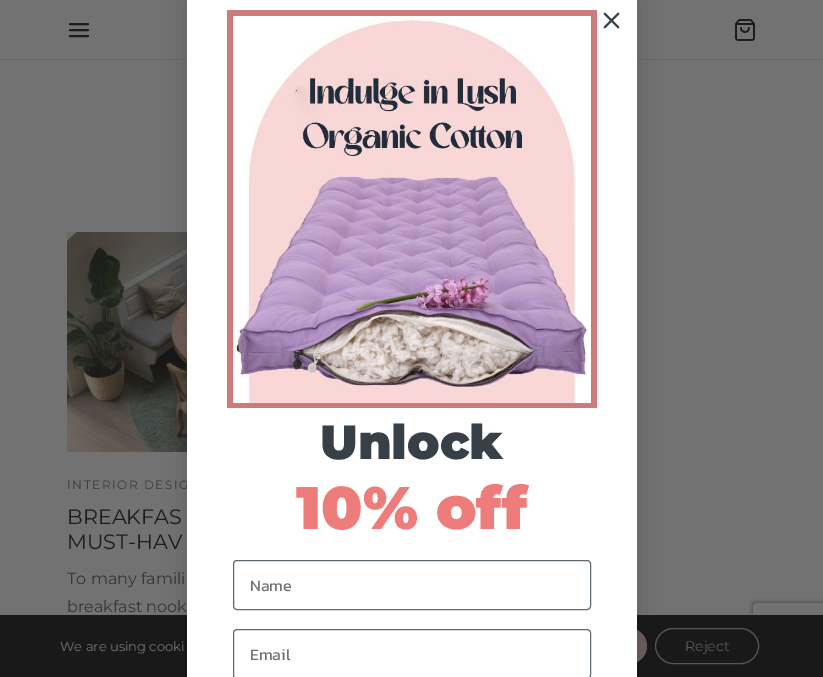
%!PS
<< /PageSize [823 677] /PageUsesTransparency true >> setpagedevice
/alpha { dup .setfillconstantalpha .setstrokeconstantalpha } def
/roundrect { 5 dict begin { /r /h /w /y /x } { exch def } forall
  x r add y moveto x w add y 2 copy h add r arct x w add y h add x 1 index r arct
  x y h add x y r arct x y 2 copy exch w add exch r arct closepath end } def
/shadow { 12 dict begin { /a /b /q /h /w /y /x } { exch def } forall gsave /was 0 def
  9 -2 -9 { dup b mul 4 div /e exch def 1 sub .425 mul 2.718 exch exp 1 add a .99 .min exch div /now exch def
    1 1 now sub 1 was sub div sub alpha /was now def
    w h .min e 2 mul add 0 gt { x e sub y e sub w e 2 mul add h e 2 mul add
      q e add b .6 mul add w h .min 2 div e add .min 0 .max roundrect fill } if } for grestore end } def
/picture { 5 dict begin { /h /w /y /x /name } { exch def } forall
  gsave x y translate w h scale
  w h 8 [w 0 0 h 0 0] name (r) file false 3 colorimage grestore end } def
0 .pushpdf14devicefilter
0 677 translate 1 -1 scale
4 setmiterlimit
0.447 setgray
0 0 823 677 rectfill
0.11 setgray
2 setlinewidth
1 setlinecap
1 setlinejoin
newpath 70 30 moveto 88 30 lineto 70 24 moveto 88 24 lineto 70 36 moveto 88 36 lineto stroke
(img1.rgb) 735 19 20 22 picture
0.408 setgray
0 59 823 1 rectfill
(img2.rgb) 67 232 120 220 picture
/Montserrat-Regular [12 0 0 -12 0 0] selectfont
0.235 setgray
67 489 moveto 1.6 0 (INTERIOR DESIG) ashow
/Montserrat-Regular [20.75 0 0 -20.75 0 0] selectfont
0.11 setgray
67 524 moveto (BREAKFAS) show
67 549 moveto (MUST-HAV) show
/Montserrat-Regular [16 0 0 -16 0 0] selectfont
0.212 setgray
67 584 moveto (Тo many famili) show
67 612 moveto (breakfast nook) show
gsave
newpath 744 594 moveto 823 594 lineto 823 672 lineto 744 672 lineto closepath 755 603 moveto 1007 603 lineto 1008 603 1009 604 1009 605 curveto 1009 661 lineto 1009 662 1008 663 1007 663 curveto 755 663 lineto 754 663 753 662 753 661 curveto 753 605 lineto 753 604 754 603 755 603 curveto closepath eoclip newpath
0.247 setgray
753 603 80 60 2 2.5 1 shadow
grestore
0.098 setgray
0 615 823 62 rectfill
0.427 0.369 0.369 setrgbcolor
537 628 110 36 18 roundrect fill
0.341 setgray
1 setlinewidth
0 setlinecap
0 setlinejoin
655.5 628.5 103 35 17.5 roundrect stroke
0 setgray
187 -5 450 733 6 15 0.15 shadow
1 setgray
187 0 450 677 rectfill
0.216 0.247 0.278 setrgbcolor
1.8 setlinewidth
1 setlinecap
1 setlinejoin
newpath 604.5 13.5 moveto 618.5 27.5 lineto 604.5 27.5 moveto 618.5 13.5 lineto closepath stroke
0.804 0.482 0.478 setrgbcolor
227 10 370 398 rectfill
(img3.rgb) 233 16 358 387 picture
/Montserrat-Black [48 0 0 -48 0 0] selectfont
0.216 0.247 0.278 setrgbcolor
320 459 moveto (Unlock) show
/Montserrat-Black [60 0 0 -60 0 0] selectfont
0.933 0.486 0.482 setrgbcolor
296 529 moveto (10% off) show
0.376 0.416 0.447 setrgbcolor
1 setlinewidth
0 setlinecap
0 setlinejoin
233.5 560.5 357 49 3.5 roundrect stroke
/Kanit-Regular [16 0 0 -16 0 0] selectfont
0.447 setgray
250 591 moveto (Name) show
0.376 0.416 0.447 setrgbcolor
233.5 629.5 357 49 3.5 roundrect stroke
0.447 setgray
250 660 moveto (Email) show
749 614 4 1 rectfill
/Montserrat-Regular [13 0 0 -13 0 0] selectfont
60 651 moveto (We are using cooki) show
/Montserrat-Regular [14 0 0 -14 0 0] selectfont
0.341 setgray
685 651 moveto (Reject) show
.poppdf14devicefilter showpage
